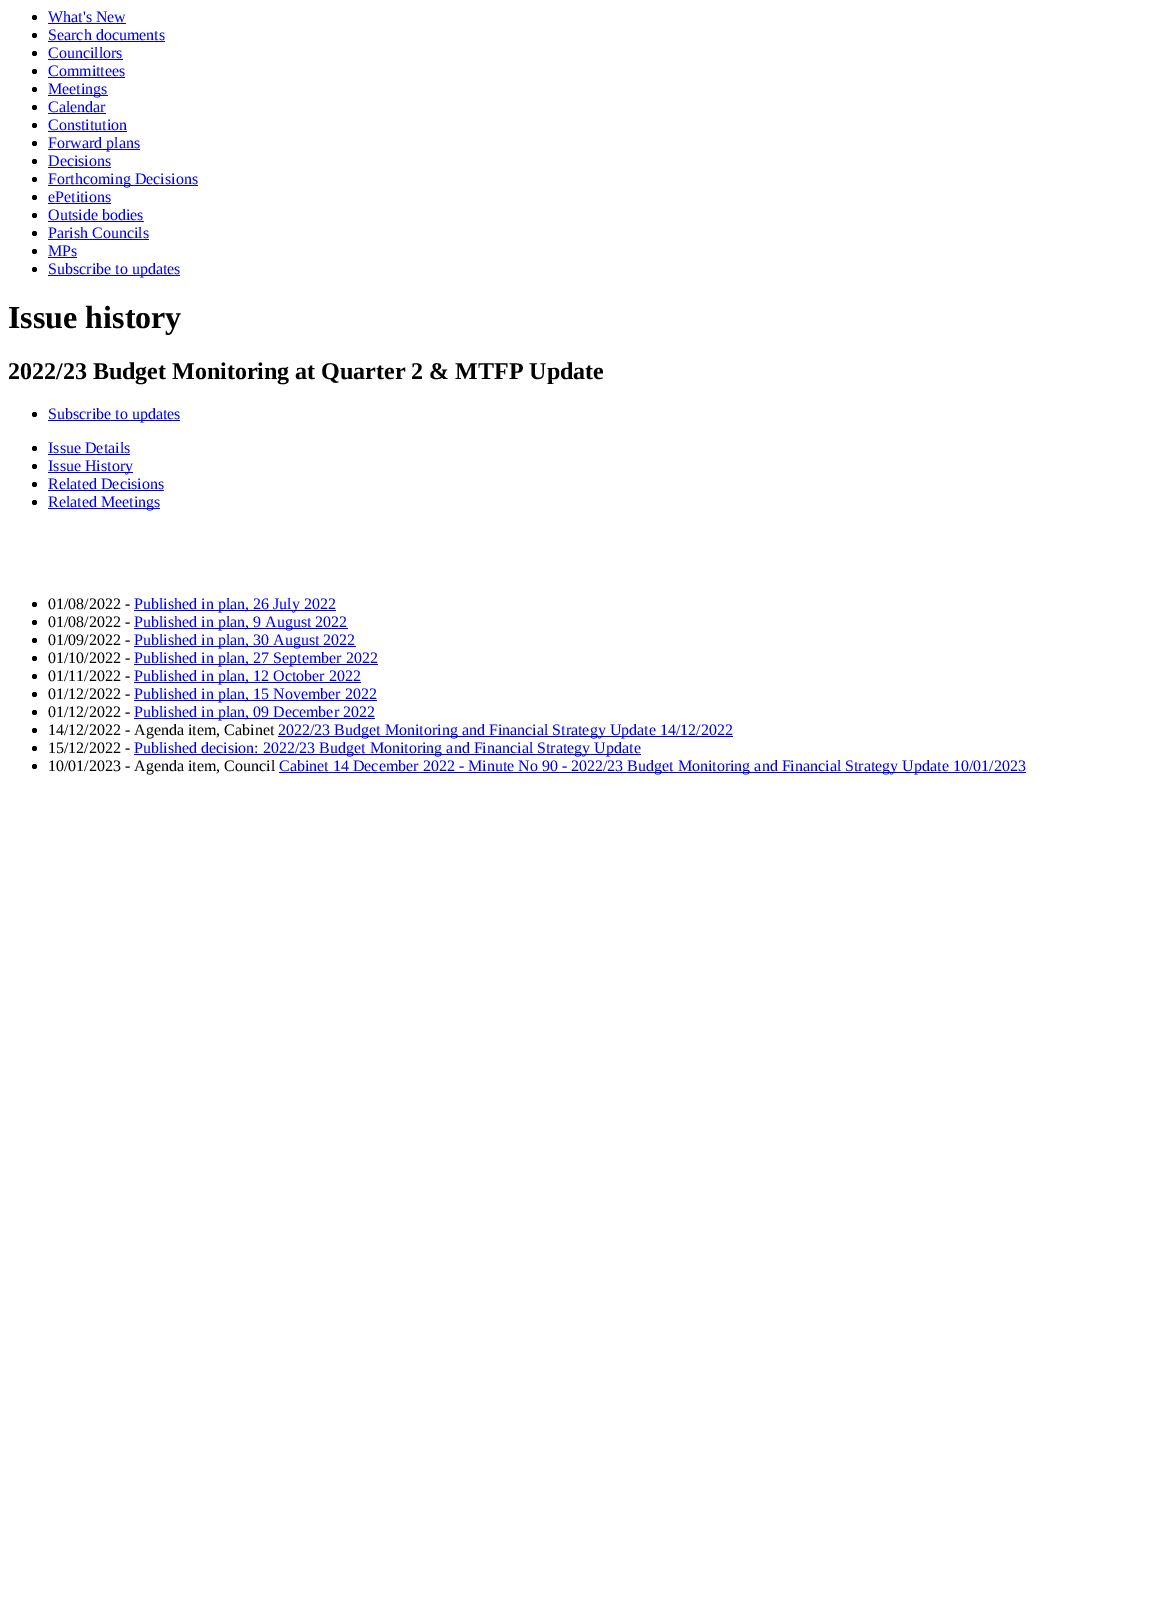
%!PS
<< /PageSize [1168 1601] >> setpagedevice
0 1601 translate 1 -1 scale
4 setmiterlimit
1 setgray
0 0 1168 1601 rectfill
0 setgray
newpath 34.5 17.5 2.5 0 360 arc closepath fill
/LiberationSerif-Regular [16 0 0 -16 0 0] selectfont
0 0 0.933 setrgbcolor
48 22 moveto (What's New) show
48 23 78 1 rectfill
0 setgray
newpath 34.5 35.5 2.5 0 360 arc closepath fill
0 0 0.933 setrgbcolor
48 40 moveto (Search documents) show
48 41 117 1 rectfill
0 setgray
newpath 34.5 53.5 2.5 0 360 arc closepath fill
0 0 0.933 setrgbcolor
48 58 moveto (Councillors) show
48 59 75 1 rectfill
0 setgray
newpath 34.5 71.5 2.5 0 360 arc closepath fill
0 0 0.933 setrgbcolor
48 76 moveto (Committees) show
48 77 77 1 rectfill
0 setgray
newpath 34.5 89.5 2.5 0 360 arc closepath fill
0 0 0.933 setrgbcolor
48 95 60 1 rectfill
48 94 moveto (Meetings) show
0 setgray
newpath 34.5 107.5 2.5 0 360 arc closepath fill
0 0 0.933 setrgbcolor
48 112 moveto (Calendar) show
48 113 58 1 rectfill
0 setgray
newpath 34.5 125.5 2.5 0 360 arc closepath fill
0 0 0.933 setrgbcolor
48 130 moveto (Constitution) show
48 131 79 1 rectfill
0 setgray
newpath 34.5 143.5 2.5 0 360 arc closepath fill
0 0 0.933 setrgbcolor
48 149 92 1 rectfill
48 148 moveto (Forward plans) show
0 setgray
newpath 34.5 161.5 2.5 0 360 arc closepath fill
0 0 0.933 setrgbcolor
48 166 moveto (Decisions) show
48 167 63 1 rectfill
0 setgray
newpath 34.5 179.5 2.5 0 360 arc closepath fill
0 0 0.933 setrgbcolor
48 185 150 1 rectfill
48 184 moveto (Forthcoming Decisions) show
0 setgray
newpath 34.5 197.5 2.5 0 360 arc closepath fill
0 0 0.933 setrgbcolor
48 202 moveto (ePetitions) show
48 203 63 1 rectfill
0 setgray
newpath 34.5 215.5 2.5 0 360 arc closepath fill
0 0 0.933 setrgbcolor
48 220 moveto (Outside bodies) show
48 221 96 1 rectfill
0 setgray
newpath 34.5 233.5 2.5 0 360 arc closepath fill
0 0 0.933 setrgbcolor
48 238 moveto (Parish Councils) show
48 239 101 1 rectfill
0 setgray
newpath 34.5 251.5 2.5 0 360 arc closepath fill
0 0 0.933 setrgbcolor
48 256 moveto (MPs) show
48 257 29 1 rectfill
0 setgray
newpath 34.5 269.5 2.5 0 360 arc closepath fill
0 0 0.933 setrgbcolor
48 275 132 1 rectfill
48 274 moveto (Subscribe to updates) show
/LiberationSerif-Bold [32 0 0 -32 0 0] selectfont
0 setgray
8 328 moveto (Issue history) show
/LiberationSerif-Bold [24 0 0 -24 0 0] selectfont
8 379 moveto (2022/23 Budget Monitoring at Quarter 2 & MTFP Update) show
newpath 34.5 414.5 2.5 0 360 arc closepath fill
0 0 0.933 setrgbcolor
48 420 132 1 rectfill
/LiberationSerif-Regular [16 0 0 -16 0 0] selectfont
48 419 moveto (Subscribe to updates) show
0 setgray
newpath 34.5 448.5 2.5 0 360 arc closepath fill
0 0 0.933 setrgbcolor
48 453 moveto (Issue Details) show
48 454 82 1 rectfill
0 setgray
newpath 34.5 466.5 2.5 0 360 arc closepath fill
0 0 0.933 setrgbcolor
48 472 85 1 rectfill
48 471 moveto (Issue History) show
0 setgray
newpath 34.5 484.5 2.5 0 360 arc closepath fill
0 0 0.933 setrgbcolor
48 489 moveto (Related Decisions) show
48 490 116 1 rectfill
0 setgray
newpath 34.5 502.5 2.5 0 360 arc closepath fill
0 0 0.933 setrgbcolor
48 508 112 1 rectfill
48 507 moveto (Related Meetings) show
0 setgray
newpath 34.5 604.5 2.5 0 360 arc closepath fill
48 609 moveto (01/08/2022 -) show
0 0 0.933 setrgbcolor
134 610 202 1 rectfill
134 609 moveto (Published in plan, 26 July 2022) show
0 setgray
newpath 34.5 622.5 2.5 0 360 arc closepath fill
48 627 moveto (01/08/2022 -) show
0 0 0.933 setrgbcolor
134 628 214 1 rectfill
134 627 moveto (Published in plan, 9 August 2022) show
0 setgray
newpath 34.5 640.5 2.5 0 360 arc closepath fill
48 645 moveto (01/09/2022 -) show
0 0 0.933 setrgbcolor
134 646 222 1 rectfill
134 645 moveto (Published in plan, 30 August 2022) show
0 setgray
newpath 34.5 658.5 2.5 0 360 arc closepath fill
48 663 moveto (01/10/2022 -) show
0 0 0.933 setrgbcolor
134 664 244 1 rectfill
134 663 moveto (Published in plan, 27 September 2022) show
0 setgray
newpath 34.5 676.5 2.5 0 360 arc closepath fill
48 681 moveto (01/11/2022 -) show
0 0 0.933 setrgbcolor
134 682 227 1 rectfill
134 681 moveto (Published in plan, 12 October 2022) show
0 setgray
newpath 34.5 694.5 2.5 0 360 arc closepath fill
48 699 moveto (01/12/2022 -) show
0 0 0.933 setrgbcolor
134 700 243 1 rectfill
134 699 moveto (Published in plan, 15 November 2022) show
0 setgray
newpath 34.5 712.5 2.5 0 360 arc closepath fill
48 717 moveto (01/12/2022 -) show
0 0 0.933 setrgbcolor
134 718 241 1 rectfill
134 717 moveto (Published in plan, 09 December 2022) show
0 setgray
newpath 34.5 730.5 2.5 0 360 arc closepath fill
48 735 moveto (14/12/2022 - Agenda item, Cabinet) show
0 0 0.933 setrgbcolor
278 736 455 1 rectfill
278 735 moveto (2022/23 Budget Monitoring and Financial Strategy Update 14/12/2022) show
0 setgray
newpath 34.5 748.5 2.5 0 360 arc closepath fill
48 753 moveto (15/12/2022 -) show
0 0 0.933 setrgbcolor
134 754 507 1 rectfill
134 753 moveto (Published decision: 2022/23 Budget Monitoring and Financial Strategy Update) show
0 setgray
newpath 34.5 766.5 2.5 0 360 arc closepath fill
48 771 moveto (10/01/2023 - Agenda item, Council) show
0 0 0.933 setrgbcolor
279 772 747 1 rectfill
279 771 moveto (Cabinet 14 December 2022 - Minute No 90 - 2022/23 Budget Monitoring and Financial Strategy Update 10/01/2023) show
showpage
